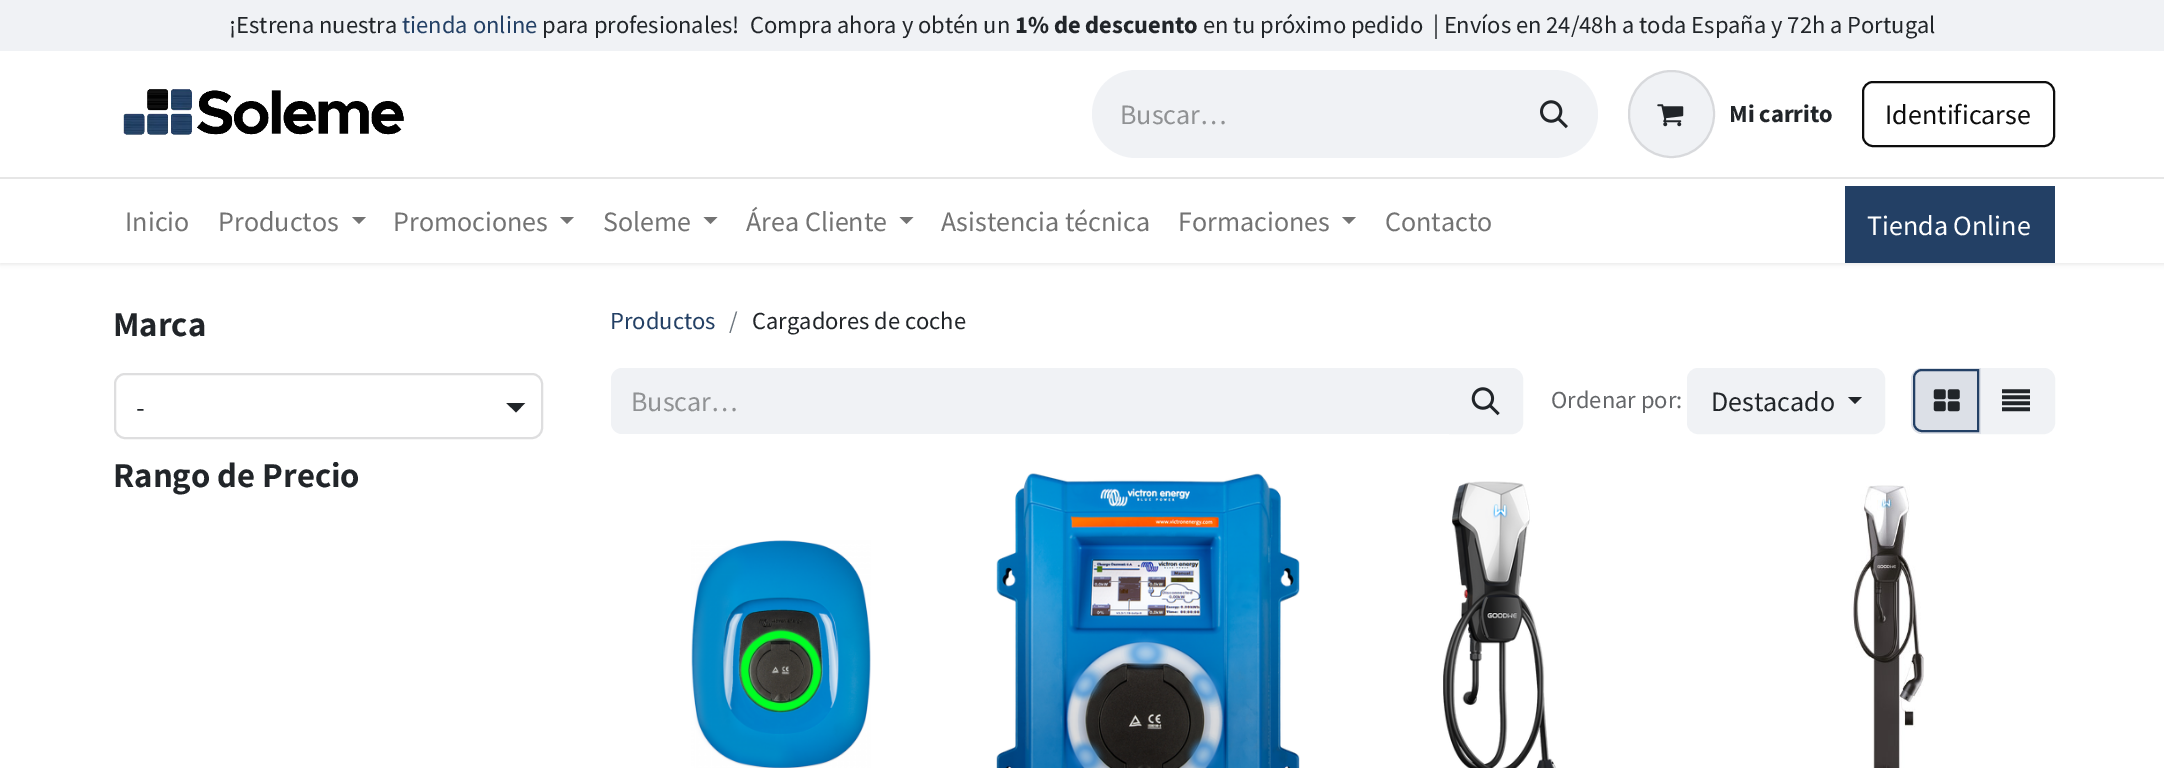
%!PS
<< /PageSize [2164 768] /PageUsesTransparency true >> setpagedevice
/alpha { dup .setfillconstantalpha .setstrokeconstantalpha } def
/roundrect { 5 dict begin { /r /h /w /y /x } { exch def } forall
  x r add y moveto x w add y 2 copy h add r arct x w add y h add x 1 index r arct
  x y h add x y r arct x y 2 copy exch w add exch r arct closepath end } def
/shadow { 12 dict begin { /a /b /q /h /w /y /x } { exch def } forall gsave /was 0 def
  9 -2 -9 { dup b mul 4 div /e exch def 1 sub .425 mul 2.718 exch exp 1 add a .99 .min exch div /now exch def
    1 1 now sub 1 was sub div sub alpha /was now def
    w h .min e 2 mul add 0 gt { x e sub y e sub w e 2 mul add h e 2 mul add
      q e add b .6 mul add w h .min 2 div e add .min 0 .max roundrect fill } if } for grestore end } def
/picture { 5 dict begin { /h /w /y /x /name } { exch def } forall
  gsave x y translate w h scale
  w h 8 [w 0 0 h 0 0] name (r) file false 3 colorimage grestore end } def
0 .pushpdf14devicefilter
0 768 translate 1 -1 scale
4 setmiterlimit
1 setgray
0 0 2164 768 rectfill
0 setgray
0 2 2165 262 0 2.5 0.1 shadow
1 setgray
0 51 2164 212 rectfill
0.941 0.949 0.961 setrgbcolor
0 0 2164 51 rectfill
/SourceSansPro-Regular [24.5 0 0 -24.5 0 0] selectfont
0.129 0.145 0.161 setrgbcolor
229 33 moveto (¡Estrena nuestra) show
0.137 0.251 0.396 setrgbcolor
402 33 moveto (tienda online) show
0.129 0.145 0.161 setrgbcolor
542 33 moveto (para profesionales!) show
750 33 moveto (Compra ahora y obtén un) show
/SourceSansPro-Bold [24.5 0 0 -24.5 0 0] selectfont
1015 33 moveto (1% de descuento) show
/SourceSansPro-Regular [24.5 0 0 -24.5 0 0] selectfont
1203 33 moveto (en tu próximo pedido  | Envíos en 24/48h a toda España y 72h a Portugal) show
(img1.rgb) 123 89 281 46 picture
0.941 0.949 0.961 setrgbcolor
newpath 1136 70 moveto 1512 70 lineto 1512 158 lineto 1136 158 lineto 1111.5 158 1092 138.5 1092 114 curveto 1092 89.5 1111.5 70 1136 70 curveto closepath fill
/SourceSansPro-Regular [28 0 0 -28 0 0] selectfont
0.565 0.573 0.58 setrgbcolor
1120 124 moveto (Buscar…) show
0.941 0.949 0.961 setrgbcolor
newpath 1510 70 moveto 1554 70 lineto 1578.5 70 1598 89.5 1598 114 curveto 1598 138.5 1578.5 158 1554 158 curveto 1510 158 lineto closepath fill
(img2.rgb) 1540 100 28 29 picture
1628 70 87 88 43.5 roundrect fill
0.1 alpha
0 setgray
2 setlinewidth
1629 71 85 86 42.5 roundrect stroke
1 alpha
(img3.rgb) 1657 104 27 23 picture
/SourceSansPro-Bold [24.5 0 0 -24.5 0 0] selectfont
0.129 0.145 0.161 setrgbcolor
1729 122 moveto (Mi carrito) show
0.051 setgray
1863 82 191 64 10 roundrect stroke
/SourceSansPro-Regular [28 0 0 -28 0 0] selectfont
1885 124 moveto (Identificarse) show
0.902 setgray
0 177 2164 2 rectfill
0.451 setgray
125 231 moveto (Inicio) show
218 231 moveto (Productos) show
newpath 352 217 moveto 366 217 lineto 359 224 lineto closepath fill
393 231 moveto (Promociones) show
newpath 560 217 moveto 574 217 lineto 567 224 lineto closepath fill
603 231 moveto (Soleme) show
newpath 703.5 217 moveto 717.5 217 lineto 710.5 224 lineto closepath fill
746 231 moveto (Área Cliente) show
newpath 899.5 217 moveto 913.5 217 lineto 906.5 224 lineto closepath fill
941 231 moveto (Asistencia técnica) show
1178 231 moveto (Formaciones) show
newpath 1342 217 moveto 1356 217 lineto 1349 224 lineto closepath fill
1385 231 moveto (Contacto) show
0.137 0.251 0.396 setrgbcolor
1845 186 210 77 rectfill
1 setgray
1867 235 moveto (Tienda Online) show
/Assistant-Bold [35 0 0 -35 0 0] selectfont
0.129 0.145 0.161 setrgbcolor
113 336 moveto (Marca) show
gsave
506 403 35 19 rectclip
newpath 506 402.5 moveto 525.5 402.5 lineto 516 412.5 lineto closepath fill
grestore
0.871 0.871 0.875 setrgbcolor
115 374 427 64 10 roundrect stroke
/SourceSansPro-Regular [28 0 0 -28 0 0] selectfont
0.129 0.145 0.161 setrgbcolor
136 417 moveto (-) show
/Assistant-Bold [35 0 0 -35 0 0] selectfont
113 487 moveto (Rango de Precio) show
/SourceSansPro-Regular [24.5 0 0 -24.5 0 0] selectfont
0.137 0.251 0.396 setrgbcolor
610 329 moveto (Productos) show
0.424 0.459 0.49 setrgbcolor
729 329 moveto (/) show
0.129 0.145 0.161 setrgbcolor
752 329 moveto (Cargadores de coche) show
0.941 0.949 0.961 setrgbcolor
newpath 622 368 moveto 1451 368 lineto 1451 434 lineto 622 434 lineto 616 434 611 429 611 423 curveto 611 379 lineto 611 373 616 368 622 368 curveto closepath fill
/SourceSansPro-Regular [28 0 0 -28 0 0] selectfont
0.565 0.573 0.58 setrgbcolor
631 411 moveto (Buscar…) show
0.941 0.949 0.961 setrgbcolor
newpath 1450 369 moveto 1512 369 lineto 1517.5 369 1522 373.5 1522 379 curveto 1522 423 lineto 1522 428.5 1517.5 433 1512 433 curveto 1450 433 lineto closepath gsave fill grestore
stroke
(img4.rgb) 1471 387 29 29 picture
/SourceSansPro-Regular [24.5 0 0 -24.5 0 0] selectfont
0.392 0.4 0.412 setrgbcolor
1551 408 moveto (Ordenar por:) show
0.941 0.949 0.961 setrgbcolor
1688 369 196 64 10 roundrect gsave fill grestore
stroke
/SourceSansPro-Regular [28 0 0 -28 0 0] selectfont
0.129 0.145 0.161 setrgbcolor
1711 411 moveto (Destacado) show
newpath 1848 397 moveto 1862 397 lineto 1855 404 lineto closepath fill
0.941 0.949 0.961 setrgbcolor
newpath 1980 369 moveto 2044 369 lineto 2049.5 369 2054 373.5 2054 379 curveto 2054 423 lineto 2054 428.5 2049.5 433 2044 433 curveto 1980 433 lineto closepath gsave fill grestore
stroke
0.863 0.878 0.906 setrgbcolor
newpath 1922 368 moveto 1981 368 lineto 1981 434 lineto 1922 434 lineto 1916 434 1911 429 1911 423 curveto 1911 379 lineto 1911 373 1916 368 1922 368 curveto closepath fill
0.137 0.251 0.396 setrgbcolor
newpath 1922 370 moveto 1978 370 lineto 1978 431 lineto 1922 431 lineto 1917.5 431 1914 427.5 1914 423 curveto 1914 378 lineto 1914 373.5 1917.5 370 1922 370 curveto closepath stroke
(img5.rgb) 1933 389 27 23 picture
(img6.rgb) 2002 389 28 23 picture
(img7.rgb) 691 540 180 228 picture
(img8.rgb) 996 473 304 295 picture
(img9.rgb) 1443 481 113 287 picture
(img10.rgb) 1851 485 73 283 picture
.poppdf14devicefilter showpage
